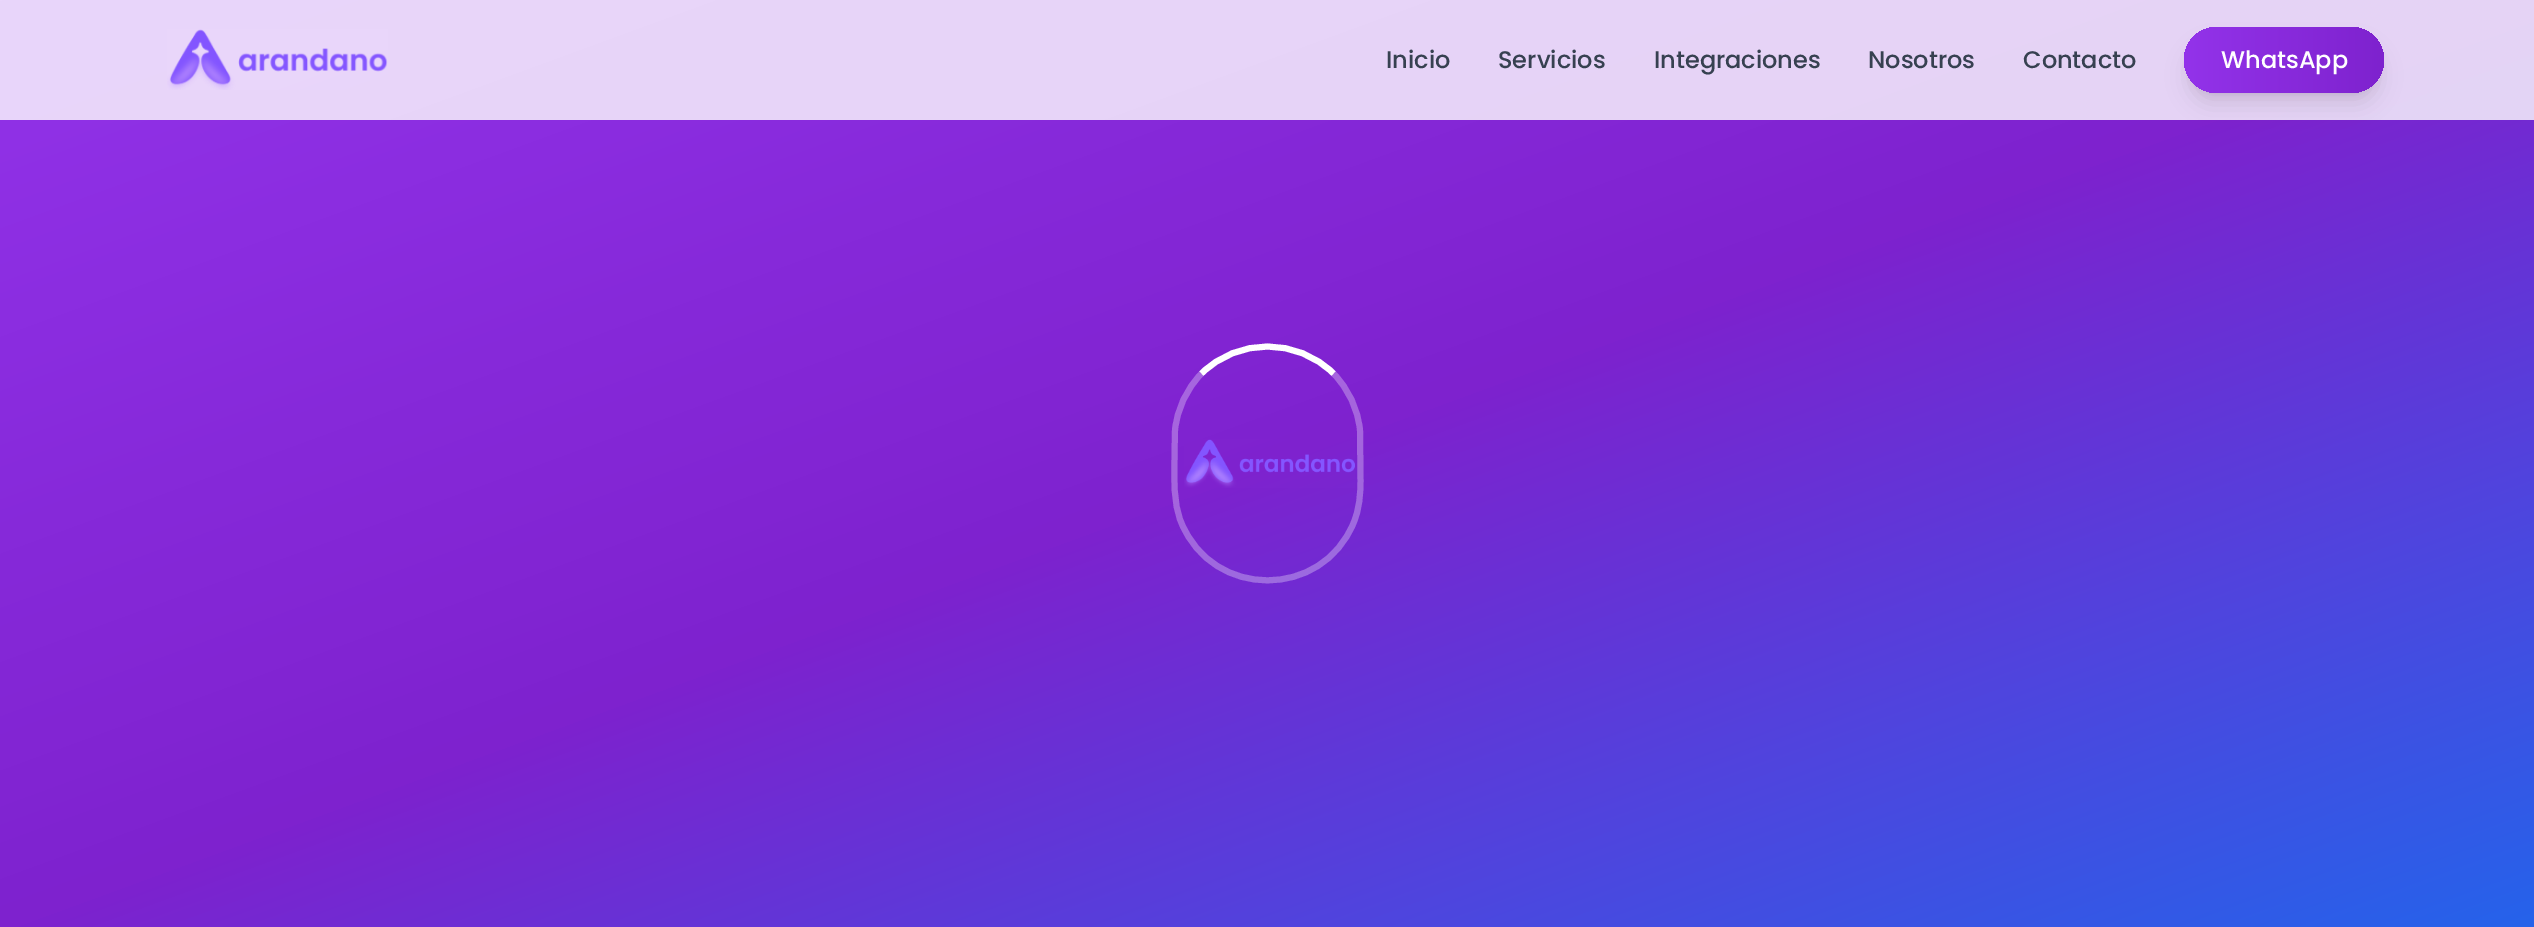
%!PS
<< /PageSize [2534 927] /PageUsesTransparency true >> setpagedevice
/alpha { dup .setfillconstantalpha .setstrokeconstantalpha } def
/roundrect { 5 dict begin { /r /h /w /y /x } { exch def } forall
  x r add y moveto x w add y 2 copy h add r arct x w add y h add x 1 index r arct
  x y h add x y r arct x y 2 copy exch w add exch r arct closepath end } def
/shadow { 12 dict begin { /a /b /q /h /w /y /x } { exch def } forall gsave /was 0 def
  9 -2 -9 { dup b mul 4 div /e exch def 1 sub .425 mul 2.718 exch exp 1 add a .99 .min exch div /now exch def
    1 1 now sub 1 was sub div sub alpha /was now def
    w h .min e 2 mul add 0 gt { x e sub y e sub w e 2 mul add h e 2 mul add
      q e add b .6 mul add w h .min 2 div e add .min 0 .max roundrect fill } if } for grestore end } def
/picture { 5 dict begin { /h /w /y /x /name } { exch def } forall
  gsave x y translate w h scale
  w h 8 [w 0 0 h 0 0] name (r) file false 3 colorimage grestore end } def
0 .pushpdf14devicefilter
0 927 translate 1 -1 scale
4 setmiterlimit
1 setgray
0 0 2534 927 rectfill
gsave newpath 0 120 moveto 2534 120 lineto 2534 927 lineto 0 927 lineto closepath clip newpath
<< /ShadingType 2 /ColorSpace /DeviceRGB /Coords [968 -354 1567 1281] /Extend [true true] /Function << /FunctionType 3 /Domain [0 1] /Functions [<< /FunctionType 2 /Domain [0 1] /C0 [0.576 0.2 0.918] /C1 [0.494 0.133 0.808] /N 1 >> << /FunctionType 2 /Domain [0 1] /C0 [0.494 0.133 0.808] /C1 [0.145 0.388 0.922] /N 1 >>] /Bounds [0.5] /Encode [0 1 0 1] >> >> shfill grestore
gsave newpath 0 0 moveto 2534 0 lineto 2534 120 lineto 0 120 lineto closepath clip newpath
<< /ShadingType 2 /ColorSpace /DeviceRGB /Coords [968 -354 1567 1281] /Extend [true true] /Function << /FunctionType 3 /Domain [0 1] /Functions [<< /FunctionType 2 /Domain [0 1] /C0 [0.914 0.839 0.984] /C1 [0.898 0.827 0.961] /N 1 >> << /FunctionType 2 /Domain [0 1] /C0 [0.898 0.827 0.961] /C1 [0.827 0.878 0.984] /N 1 >>] /Bounds [0.5] /Encode [0 1 0 1] >> >> shfill grestore
6 setlinewidth
newpath 1201.5 373.5 moveto 1238 337.5 1297 337.5 1333.5 373.5 curveto stroke
(img1.rgb) 1184 439 171 49 picture
0.3 alpha
newpath 1333.5 373.5 moveto 1348.5 389 1358 409 1360 430.5 curveto 1360.5 479.5 lineto 1360.5 494.5 1359.5 509 1353.5 523 curveto 1322 599.5 1213 599.5 1181.5 523 curveto 1172.5 501.5 1174.5 478.5 1174.5 455.5 curveto 1175 430.5 lineto 1177 409 1186.5 389 1201.5 373.5 curveto stroke
1 alpha
(img2.rgb) 167 29 221 61 picture
/Poppins-Medium [24 0 0 -24 0 0] selectfont
0.216 0.255 0.318 setrgbcolor
1386 68 moveto (Inicio) show
1498 68 moveto (Servicios) show
1654 68 moveto (Integraciones) show
1868 68 moveto (Nosotros) show
2023 68 moveto (Contacto) show
0 setgray
2190 39 188 54 27 4.5 0.1 shadow
2189 47 190 57 28.5 11 0.1 shadow
gsave 2184 27 200 66 33 roundrect clip newpath
<< /ShadingType 2 /ColorSpace /DeviceRGB /Coords [2184 60 2384 60] /Extend [true true] /Function << /FunctionType 2 /Domain [0 1] /C0 [0.576 0.2 0.918] /C1 [0.494 0.133 0.808] /N 1 >> >> shfill grestore
1 setgray
2221 68 moveto (WhatsApp) show
.poppdf14devicefilter showpage
